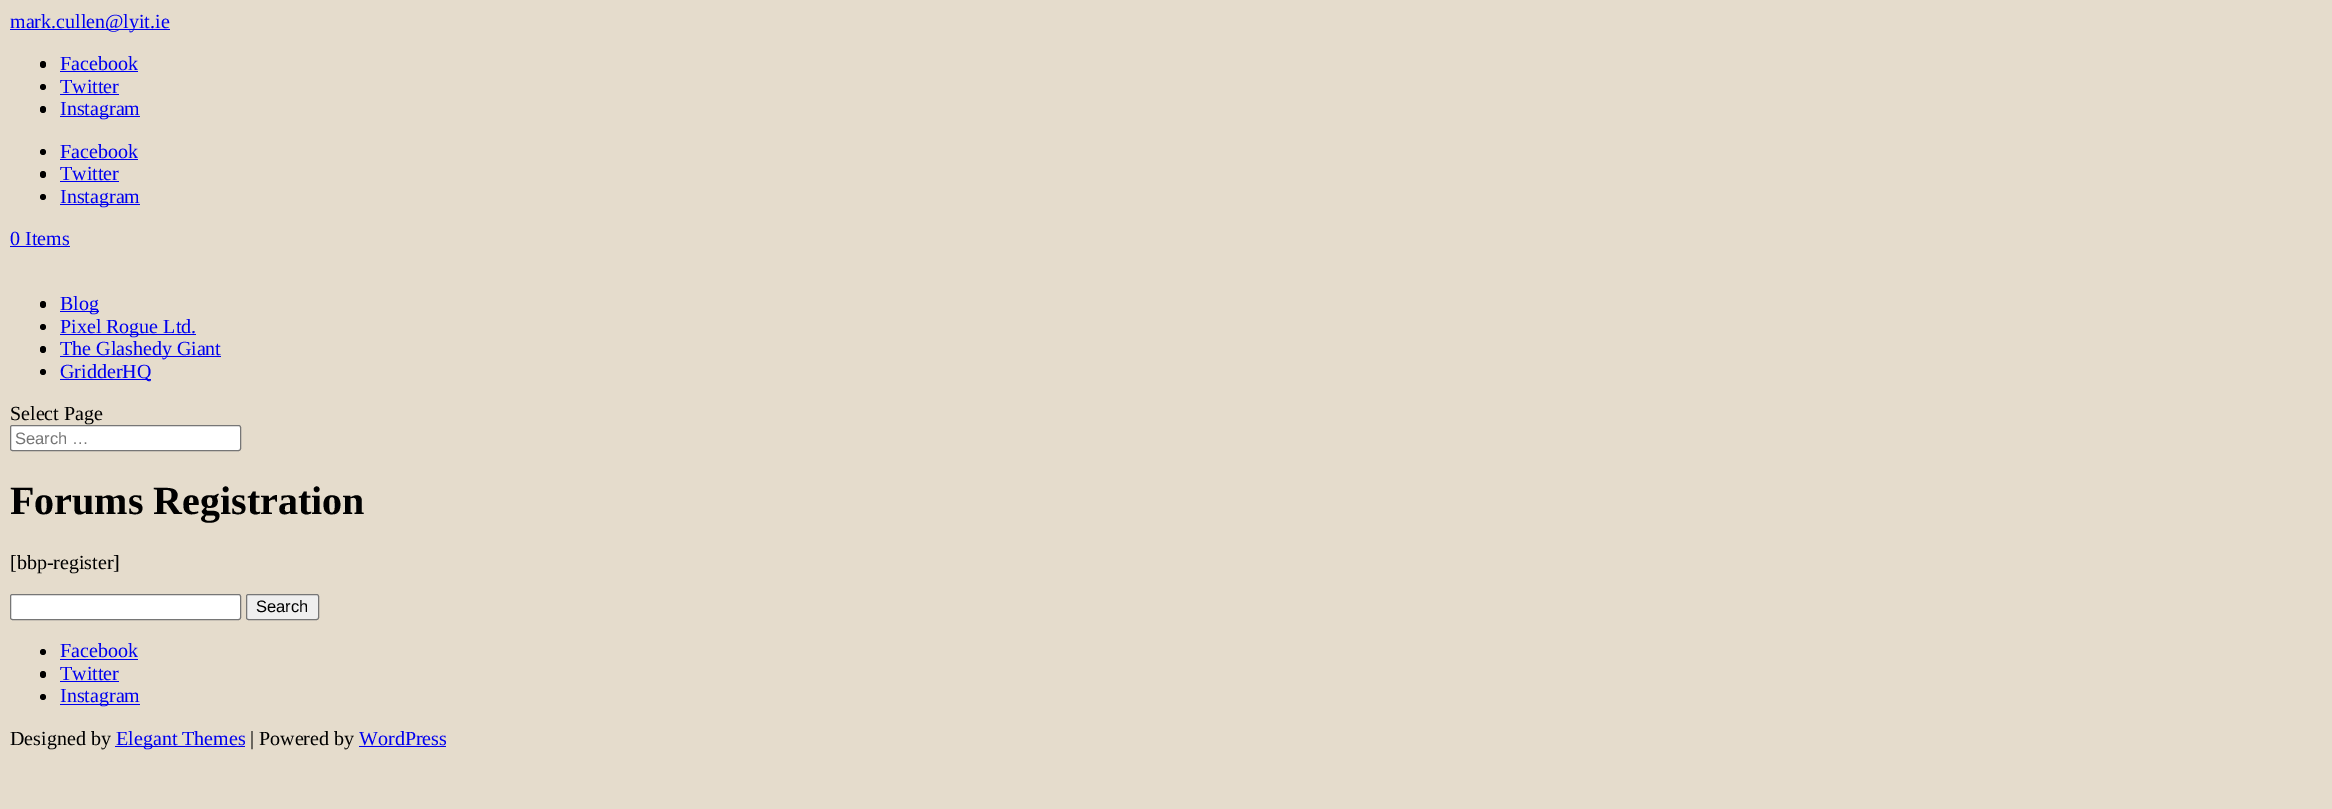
%!PS
<< /PageSize [2332 809] >> setpagedevice
/roundrect { 5 dict begin { /r /h /w /y /x } { exch def } forall
  x r add y moveto x w add y 2 copy h add r arct x w add y h add x 1 index r arct
  x y h add x y r arct x y 2 copy exch w add exch r arct closepath end } def
0 809 translate 1 -1 scale
4 setmiterlimit
0.898 0.863 0.8 setrgbcolor
0 0 2332 809 rectfill
0 0 0.933 setrgbcolor
10 29 160 1 rectfill
/LiberationSerif-Regular [20 0 0 -20 0 0] selectfont
10 28 moveto (mark.cullen@lyit.ie) show
0 setgray
40 61 6 7 3 roundrect fill
0 0 0.933 setrgbcolor
60 70 moveto (Facebook) show
60 71 78 1 rectfill
0 setgray
newpath 43 87 3 0 360 arc closepath fill
0 0 0.933 setrgbcolor
60 93 moveto (Twitter) show
60 94 59 1 rectfill
0 setgray
40 106 6 7 3 roundrect fill
0 0 0.933 setrgbcolor
60 116 80 1 rectfill
60 115 moveto (Instagram) show
0 setgray
newpath 43 152 3 0 360 arc closepath fill
0 0 0.933 setrgbcolor
60 158 moveto (Facebook) show
60 159 78 1 rectfill
0 setgray
40 171 6 7 3 roundrect fill
0 0 0.933 setrgbcolor
60 180 moveto (Twitter) show
60 181 59 1 rectfill
0 setgray
newpath 43 197 3 0 360 arc closepath fill
0 0 0.933 setrgbcolor
60 204 80 1 rectfill
60 203 moveto (Instagram) show
10 245 moveto (0 Items) show
10 246 60 1 rectfill
0 setgray
40 301 6 7 3 roundrect fill
0 0 0.933 setrgbcolor
60 311 39 1 rectfill
60 310 moveto (Blog) show
0 setgray
newpath 43 327 3 0 360 arc closepath fill
0 0 0.933 setrgbcolor
60 334 136 1 rectfill
60 333 moveto (Pixel Rogue Ltd.) show
0 setgray
40 346 6 7 3 roundrect fill
0 0 0.933 setrgbcolor
60 356 161 1 rectfill
60 355 moveto (The Glashedy Giant) show
0 setgray
newpath 43 372 3 0 360 arc closepath fill
0 0 0.933 setrgbcolor
60 379 91 1 rectfill
60 378 moveto (GridderHQ) show
0 setgray
10 420 moveto (Select Page) show
1 setgray
10.5 425.5 230 25 2 roundrect gsave fill grestore
0.463 setgray
stroke
/LiberationSans-Regular [16.5 0 0 -16.5 0 0] selectfont
0.459 setgray
15 444 moveto (Search …) show
/LiberationSerif-Bold [40 0 0 -40 0 0] selectfont
0 setgray
10 514 moveto (Forums Registration) show
/LiberationSerif-Regular [20 0 0 -20 0 0] selectfont
10 569 moveto ([bbp-register]) show
1 setgray
10.5 594.5 230 25 2 roundrect gsave fill grestore
0.463 setgray
stroke
0.937 setgray
246.5 594.5 72 25 2 roundrect gsave fill grestore
0.463 setgray
stroke
/LiberationSans-Regular [16.5 0 0 -16.5 0 0] selectfont
0 setgray
256 612 moveto (Search) show
newpath 43 652 3 0 360 arc closepath fill
/LiberationSerif-Regular [20 0 0 -20 0 0] selectfont
0 0 0.933 setrgbcolor
60 657 moveto (Facebook) show
60 659 78 1 rectfill
0 setgray
40 671 6 7 3 roundrect fill
0 0 0.933 setrgbcolor
60 680 moveto (Twitter) show
60 681 59 1 rectfill
0 setgray
newpath 43 697 3 0 360 arc closepath fill
0 0 0.933 setrgbcolor
60 704 80 1 rectfill
60 702 moveto (Instagram) show
0 setgray
10 745 moveto (Designed by) show
0 0 0.933 setrgbcolor
115 746 130 1 rectfill
116 745 moveto (Elegant Themes) show
0 setgray
250 745 moveto (| Powered by) show
0 0 0.933 setrgbcolor
359 745 moveto (WordPress) show
359 746 87 1 rectfill
showpage
